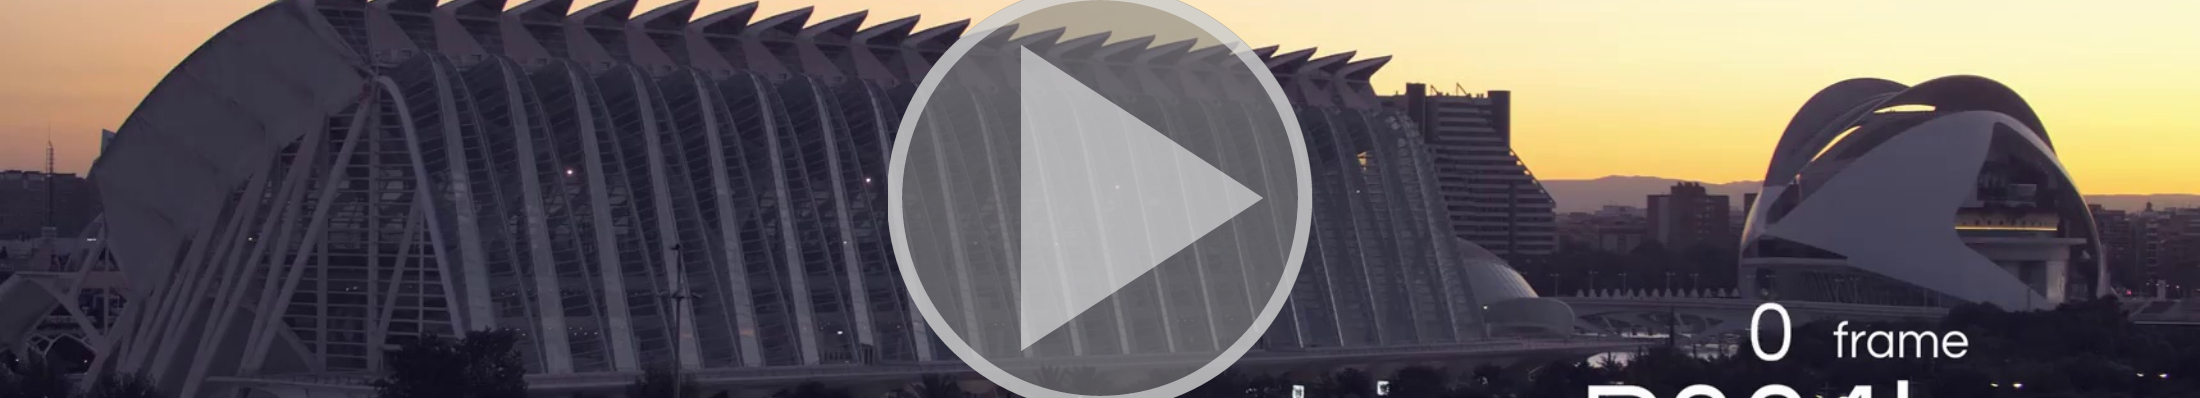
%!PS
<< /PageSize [2200 398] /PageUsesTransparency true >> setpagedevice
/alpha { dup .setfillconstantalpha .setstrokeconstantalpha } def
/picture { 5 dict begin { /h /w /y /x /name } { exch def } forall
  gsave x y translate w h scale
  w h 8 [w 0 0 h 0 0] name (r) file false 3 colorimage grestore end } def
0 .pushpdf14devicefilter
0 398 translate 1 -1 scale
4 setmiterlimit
1 setgray
0 0 2200 398 rectfill
(img1.rgb) 0 0 2200 398 picture
gsave
888 0 425 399 rectclip
0.6 alpha
0.502 setgray
newpath 1100 198 212.5 0 360 arc closepath fill
0.922 setgray
newpath 1100 -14 moveto 1217 -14 1312 81 1312 198 curveto 1312 315 1217 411 1100 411 curveto 983 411 887 315 887 198 curveto 887 81 983 -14 1100 -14 curveto closepath 1100 0 moveto 1209 0 1298 89 1298 198 curveto 1298 308 1209 396 1100 396 curveto 991 396 902 308 902 198 curveto 902 89 991 0 1100 0 curveto closepath eofill
grestore
0.6 alpha
0.922 setgray
newpath 1263 198 moveto 1021 351 lineto 1021 45 lineto closepath eofill
.poppdf14devicefilter showpage
